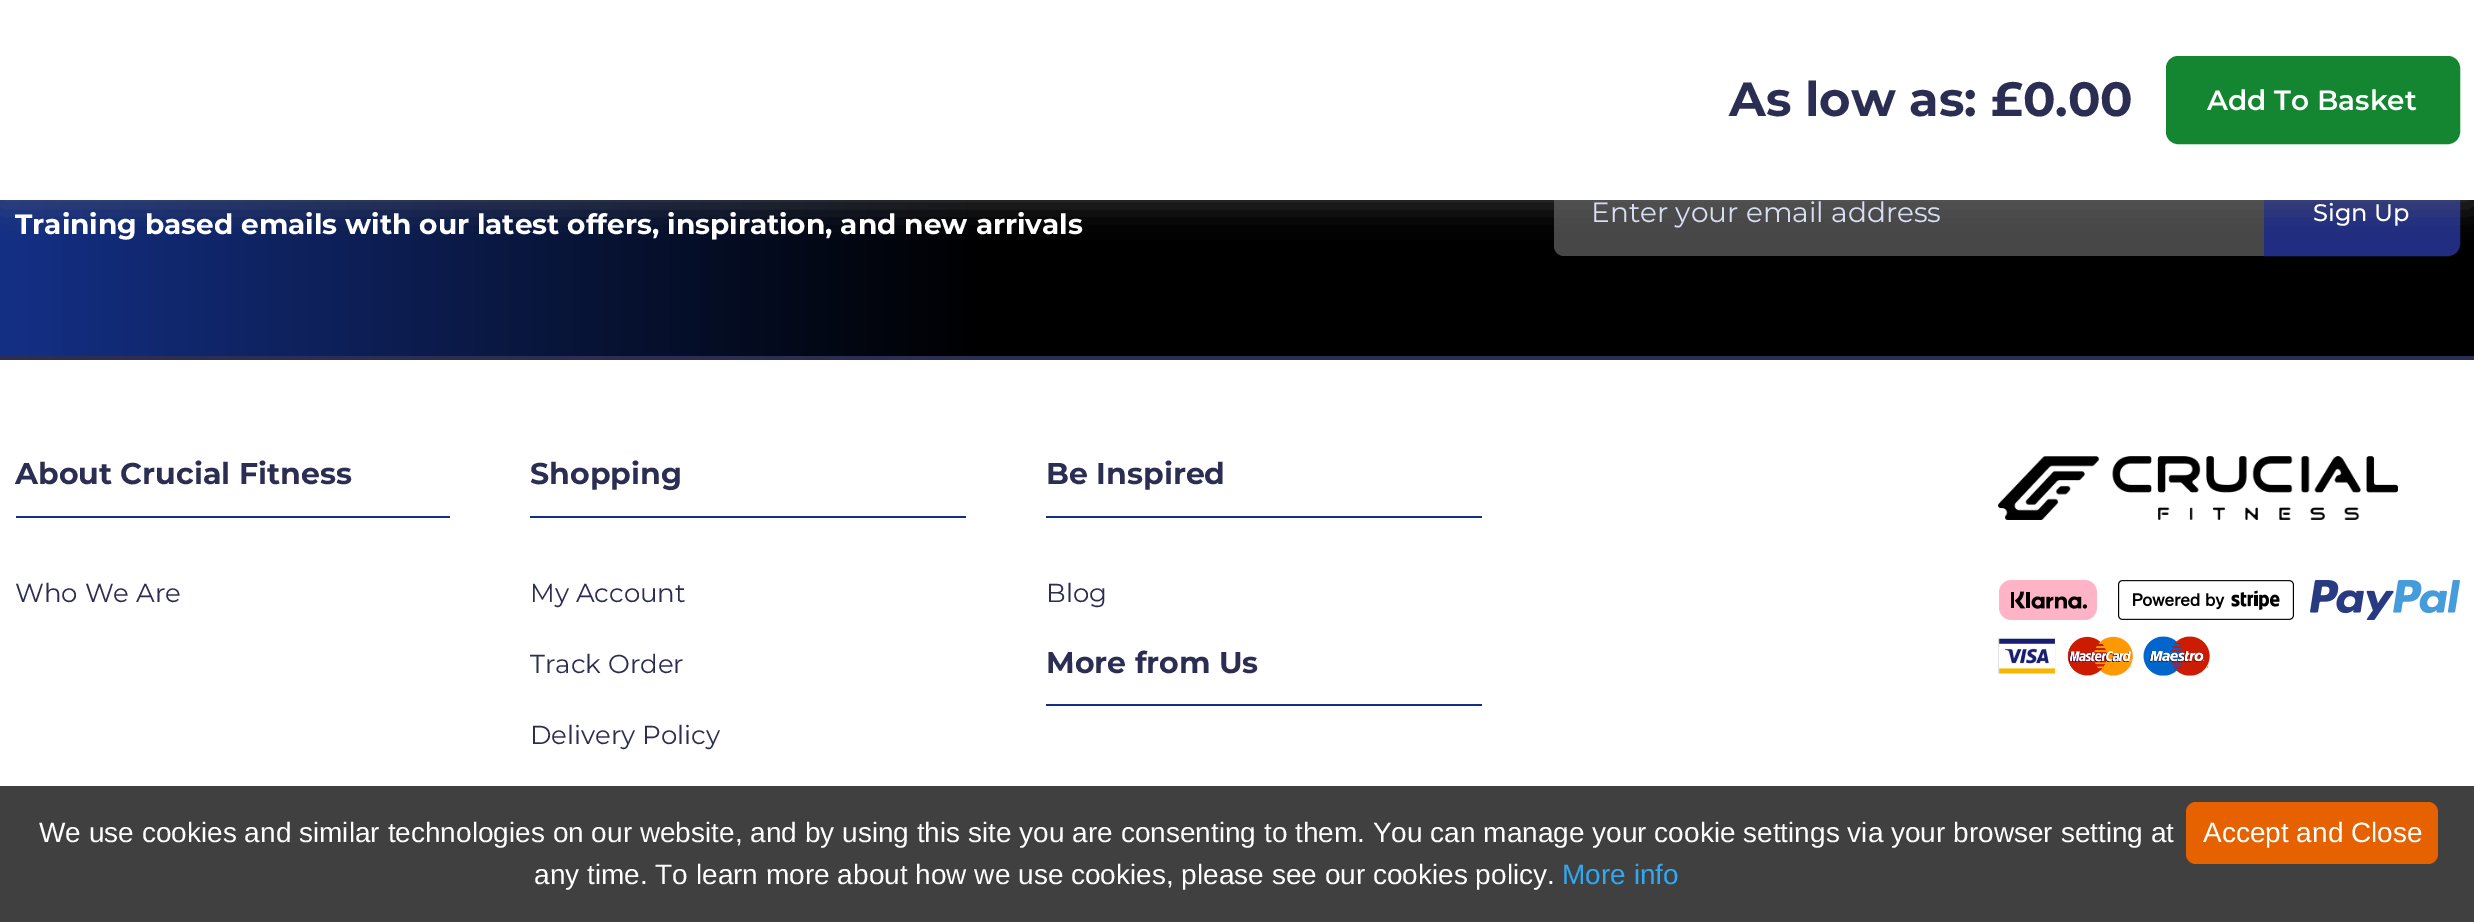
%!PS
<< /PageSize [2474 922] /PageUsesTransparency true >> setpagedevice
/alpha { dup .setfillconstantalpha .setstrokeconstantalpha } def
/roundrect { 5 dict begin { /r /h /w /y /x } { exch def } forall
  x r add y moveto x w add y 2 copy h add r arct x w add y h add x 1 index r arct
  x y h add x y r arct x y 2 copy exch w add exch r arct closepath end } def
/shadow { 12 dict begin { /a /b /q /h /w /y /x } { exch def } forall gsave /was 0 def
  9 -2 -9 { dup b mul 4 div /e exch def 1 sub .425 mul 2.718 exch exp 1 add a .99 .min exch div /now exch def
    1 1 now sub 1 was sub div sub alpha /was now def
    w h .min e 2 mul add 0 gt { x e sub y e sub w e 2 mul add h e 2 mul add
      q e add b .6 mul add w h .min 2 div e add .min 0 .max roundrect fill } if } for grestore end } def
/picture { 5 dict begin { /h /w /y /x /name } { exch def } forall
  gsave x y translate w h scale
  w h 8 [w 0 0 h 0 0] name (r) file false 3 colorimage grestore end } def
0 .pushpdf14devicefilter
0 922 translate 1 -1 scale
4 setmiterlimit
1 setgray
0 0 2474 922 rectfill
gsave newpath 0 200 moveto 2474 200 lineto 2474 356 lineto 0 356 lineto closepath clip newpath
<< /ShadingType 2 /ColorSpace /DeviceRGB /Coords [0 213 2474 213] /Extend [true true] /Function << /FunctionType 3 /Domain [0 1] /Functions [<< /FunctionType 2 /Domain [0 1] /C0 [0.078 0.188 0.525] /C1 [0 0 0] /N 1 >> << /FunctionType 2 /Domain [0 1] /C0 [0 0 0] /C1 [0 0 0] /N 1 >>] /Bounds [0.4] /Encode [0 1 0 1] >> >> shfill grestore
0.278 setgray
newpath 1564 168 moveto 2264 168 lineto 2264 256 lineto 1564 256 lineto 1558.5 256 1554 251.5 1554 246 curveto 1554 178 lineto 1554 172.5 1558.5 168 1564 168 curveto closepath fill
0.125 0.176 0.502 setrgbcolor
newpath 2265 169 moveto 2448 169 lineto 2454 169 2459 174 2459 180 curveto 2459 244 lineto 2459 250 2454 255 2448 255 curveto 2265 255 lineto closepath gsave fill grestore
2 setlinewidth
stroke
0.392 setgray
0 6 2474 200 0 15 0.49 shadow
1 setgray
0 0 2474 200 rectfill
/Montserrat-Thin [48 0 0 -48 0 0] selectfont
0.169 0.18 0.322 setrgbcolor
1729 116 moveto (As low as: £0.00) show
0.078 0.525 0.192 setrgbcolor
2167 57 292 86 11 roundrect gsave fill grestore
stroke
/Montserrat-SemiBold [28 0 0 -28 0 0] selectfont
1 setgray
2207 110 moveto (Add To Basket) show
/Montserrat-Thin [28 0 0 -28 0 0] selectfont
15 234 moveto (Training based emails with our latest offers, inspiration, and new arrivals) show
/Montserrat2-Thin [28 0 0 -28 0 0] selectfont
0.847 0.875 0.953 setrgbcolor
1591 222 moveto (Enter your email address) show
/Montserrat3-Thin [24 0 0 -24 0 0] selectfont
1 setgray
2313 221 moveto (Sign Up) show
0.169 0.18 0.322 setrgbcolor
0 356 2474 4 rectfill
0.078 0.188 0.525 setrgbcolor
16 516 434 2 rectfill
/Montserrat-Thin [30 0 0 -30 0 0] selectfont
0.169 0.18 0.322 setrgbcolor
15 484 moveto (About Crucial Fitness) show
/Montserrat2-Thin [26 0 0 -26 0 0] selectfont
15 602 moveto (Who We Are) show
0.078 0.188 0.525 setrgbcolor
530 516 436 2 rectfill
/Montserrat-Thin [30 0 0 -30 0 0] selectfont
0.169 0.18 0.322 setrgbcolor
530 484 moveto (Shopping) show
/Montserrat2-Thin [26 0 0 -26 0 0] selectfont
530 602 moveto (My Account) show
530 673 moveto (Track Order) show
530 744 moveto (Delivery Policy) show
0.078 0.188 0.525 setrgbcolor
1046 516 436 2 rectfill
/Montserrat-Thin [30 0 0 -30 0 0] selectfont
0.169 0.18 0.322 setrgbcolor
1046 484 moveto (Be Inspired) show
/Montserrat2-Thin [26 0 0 -26 0 0] selectfont
1046 602 moveto (Blog) show
0.078 0.188 0.525 setrgbcolor
1046 704 436 2 rectfill
/Montserrat-Thin [30 0 0 -30 0 0] selectfont
0.169 0.18 0.322 setrgbcolor
1046 673 moveto (More from Us) show
(img1.rgb) 1998 456 400 64 picture
(img2.rgb) 1999 580 98 40 picture
(img3.rgb) 2118 580 176 40 picture
(img4.rgb) 2310 580 150 40 picture
(img5.rgb) 1998 636 212 40 picture
0.251 setgray
0 786 2474 136 rectfill
/LiberationSans-Regular [28 0 0 -28 0 0] selectfont
1 setgray
39 842 moveto (We use cookies and similar technologies on our website, and by using this site you are consenting to them. You can manage your cookie settings via your browser setting at) show
534 884 moveto (any time. To learn more about how we use cookies, please see our cookies policy.) show
0.192 0.659 0.941 setrgbcolor
1562 884 moveto (More info) show
0.902 0.38 0 setrgbcolor
2186 802 252 62 10 roundrect fill
1 setgray
2203 842 moveto (Accept and Close) show
.poppdf14devicefilter showpage
